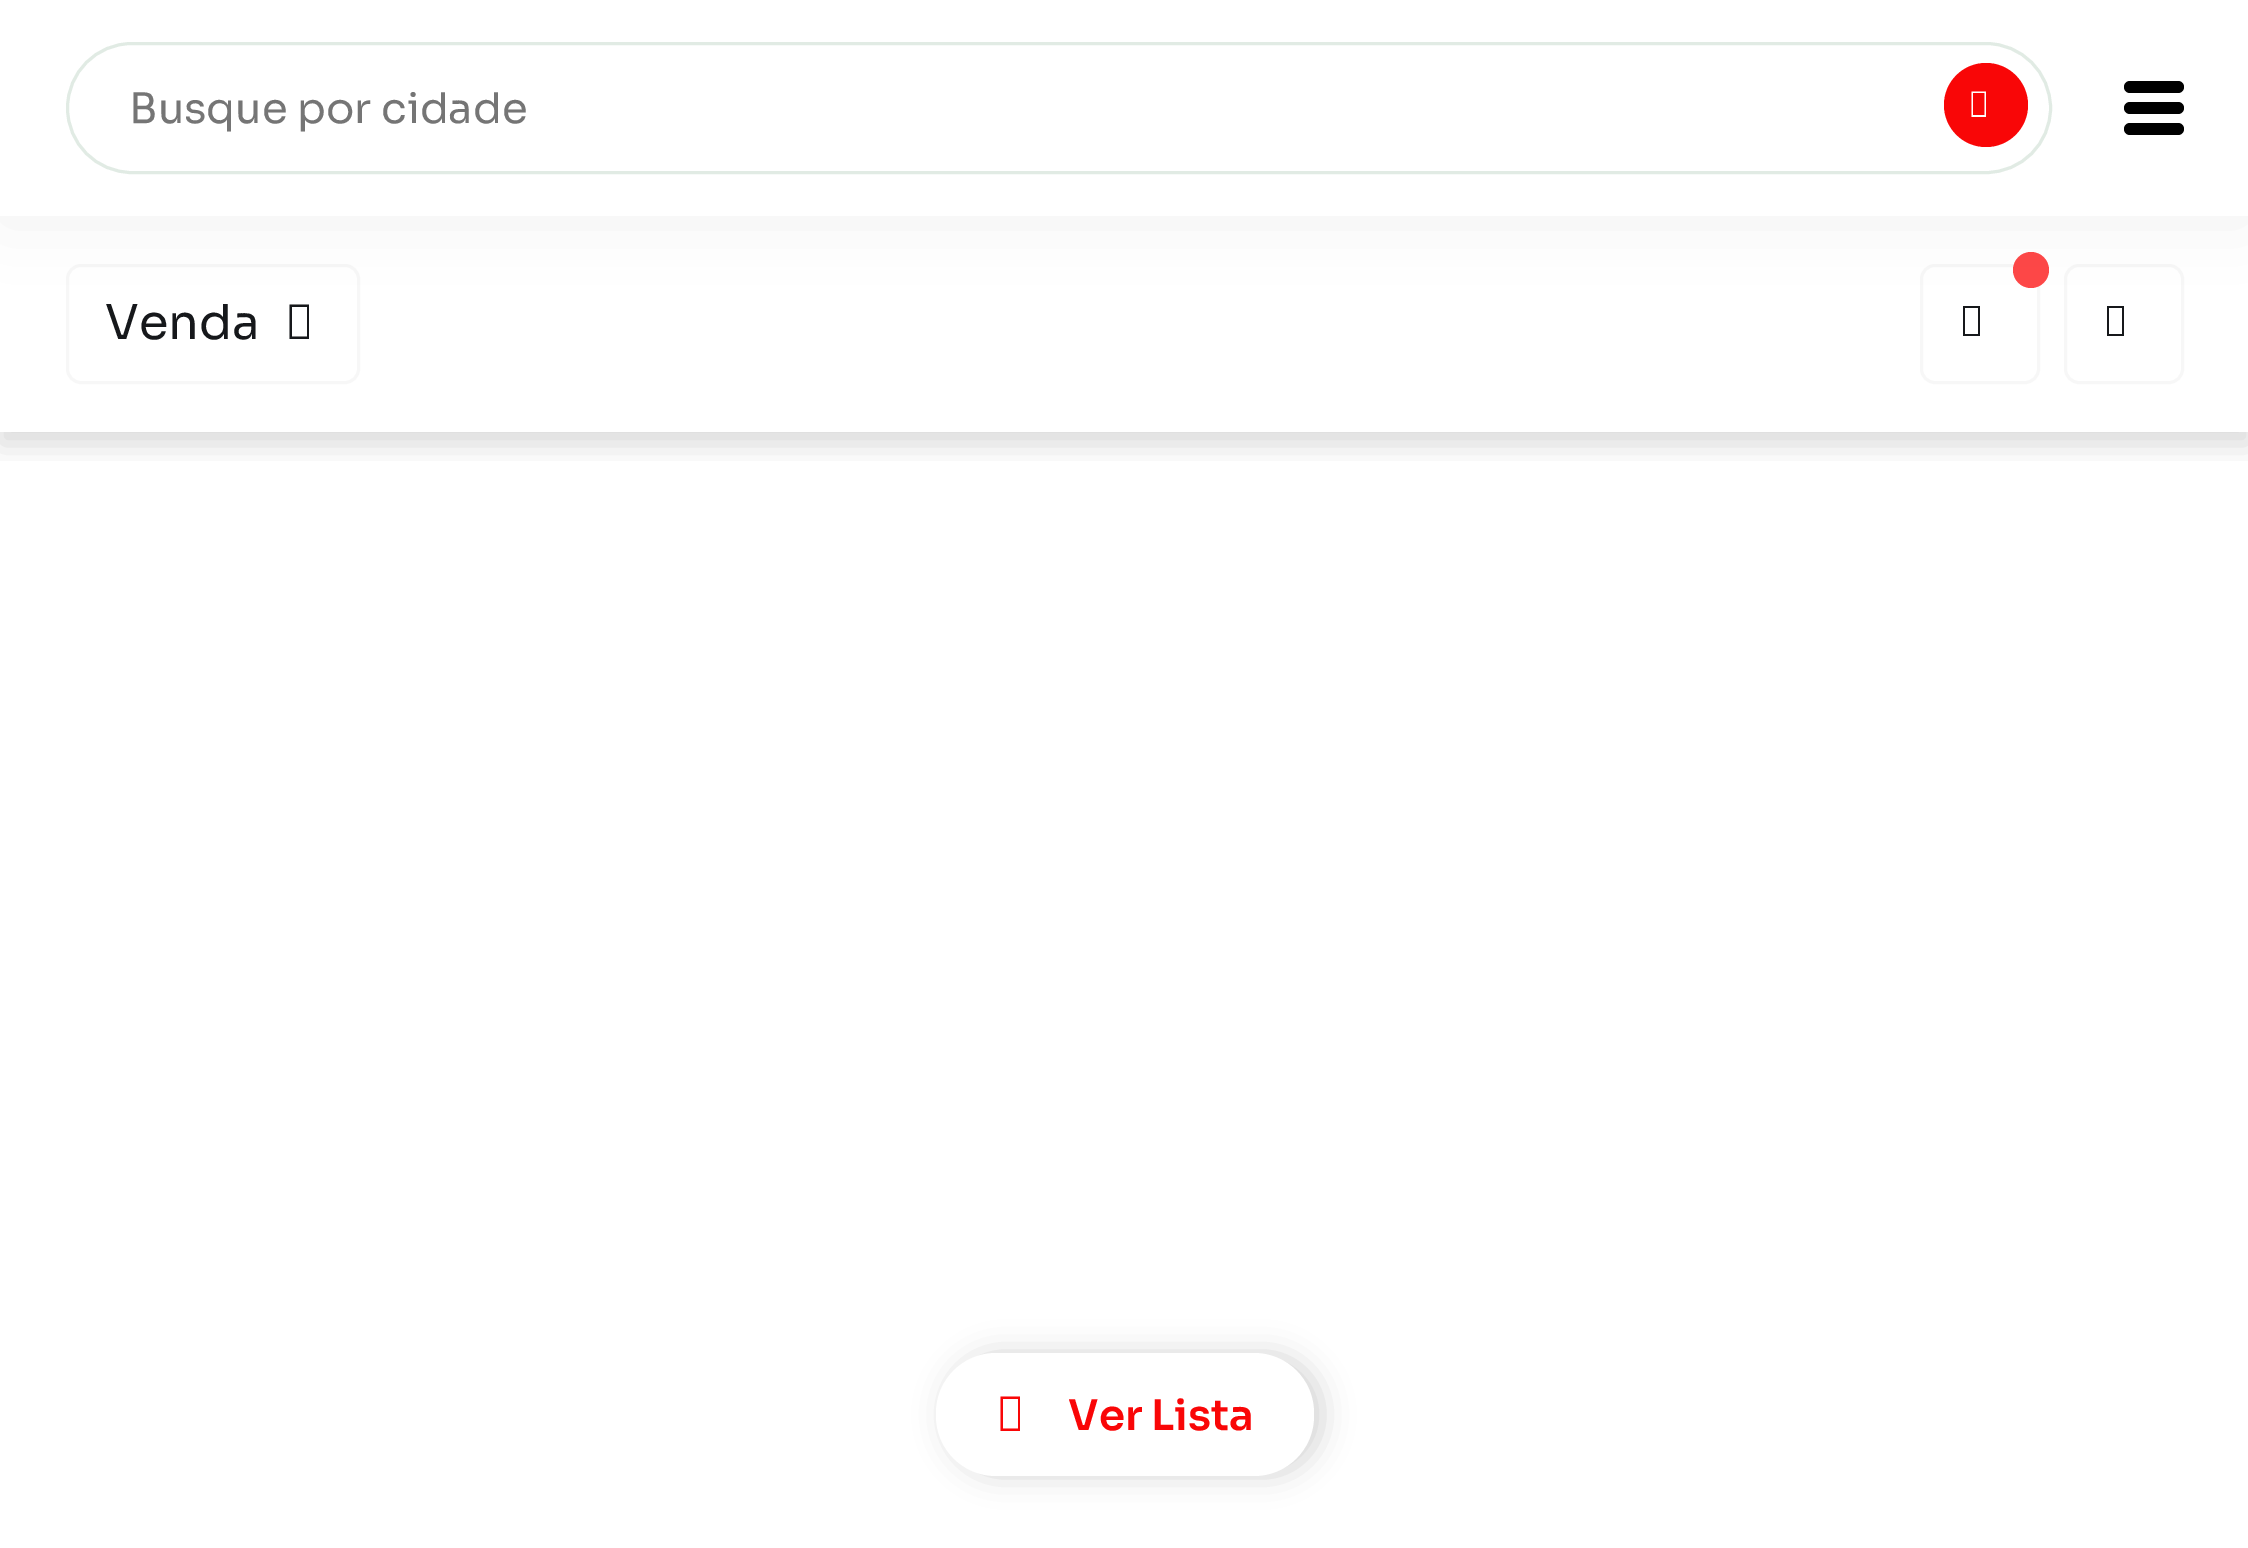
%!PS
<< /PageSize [2248 1548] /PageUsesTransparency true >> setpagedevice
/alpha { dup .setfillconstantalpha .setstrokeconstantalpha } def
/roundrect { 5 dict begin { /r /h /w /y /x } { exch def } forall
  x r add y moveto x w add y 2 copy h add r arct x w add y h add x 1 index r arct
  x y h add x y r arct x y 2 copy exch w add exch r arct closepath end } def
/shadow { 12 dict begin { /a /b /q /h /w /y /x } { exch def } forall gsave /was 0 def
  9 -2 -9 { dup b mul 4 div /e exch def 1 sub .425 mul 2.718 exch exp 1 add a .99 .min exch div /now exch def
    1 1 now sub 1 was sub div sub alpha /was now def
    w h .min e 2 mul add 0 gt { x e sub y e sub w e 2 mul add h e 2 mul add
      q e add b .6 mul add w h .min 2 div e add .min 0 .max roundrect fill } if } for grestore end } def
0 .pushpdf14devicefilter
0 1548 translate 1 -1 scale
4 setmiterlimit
1 setgray
0 0 2248 1548 rectfill
gsave
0 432 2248 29 rectclip
0 setgray
0 228 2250 216 0 15 0.15 shadow
grestore
0.969 setgray
3 setlinewidth
67.5 265.5 291 117 13.5 roundrect stroke
0.086 0.094 0.106 setrgbcolor
newpath 289.5 339 moveto 289.5 304.5 lineto 309 304.5 lineto 309 339 lineto closepath 292 336.5 moveto 307 336.5 lineto 307 307 lineto 292 307 lineto closepath fill
0.969 setgray
1921.5 265.5 117 117 13.5 roundrect stroke
0.996 0.278 0.278 setrgbcolor
newpath 2031 270 18 0 360 arc closepath fill
0.086 0.094 0.106 setrgbcolor
newpath 1963 336 moveto 1963 306 lineto 1980 306 lineto 1980 336 lineto closepath 1965 334 moveto 1978 334 lineto 1978 308 lineto 1965 308 lineto closepath fill
0.969 setgray
2065.5 265.5 117 117 13.5 roundrect stroke
0.086 0.094 0.106 setrgbcolor
newpath 2107 336 moveto 2107 306 lineto 2124 306 lineto 2124 336 lineto closepath 2109 334 moveto 2122 334 lineto 2122 308 lineto 2109 308 lineto closepath fill
0 setgray
0 6 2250 216 0 36 0.05 shadow
1 setgray
0 0 2248 216 rectfill
0.882 0.922 0.894 setrgbcolor
67.5 43.5 1983 129 64.5 roundrect stroke
/Sora-Regular [42 0 0 -42 0 0] selectfont
0.459 setgray
129 123 moveto (Busque por cidade) show
0.976 0.024 0.027 setrgbcolor
newpath 1986 105 42 0 360 arc closepath fill
1 setgray
newpath 1971.5 117 moveto 1971.5 91.5 lineto 1986 91.5 lineto 1986 117 lineto closepath 1973 115 moveto 1984.5 115 lineto 1984.5 93 lineto 1973 93 lineto closepath fill
0 setgray
2124 81 60 12 6 roundrect fill
2124 102 60 12 6 roundrect fill
2124 123 60 12 6 roundrect fill
/Sora-Regular [48 0 0 -48 0 0] selectfont
0.086 0.094 0.106 setrgbcolor
105 339 moveto (Venda) show
0 setgray
945 1353 378 123 60 15 0.16 shadow
1 setgray
936 1353 378 123 60 roundrect fill
0.976 0.024 0.027 setrgbcolor
newpath 1000.5 1431 moveto 1000.5 1396.5 lineto 1020 1396.5 lineto 1020 1431 lineto closepath 1003 1428.5 moveto 1018 1428.5 lineto 1018 1399 lineto 1003 1399 lineto closepath fill
/Sora-SemiBold [42 0 0 -42 0 0] selectfont
1068 1430 moveto (Ver Lista) show
.poppdf14devicefilter showpage
